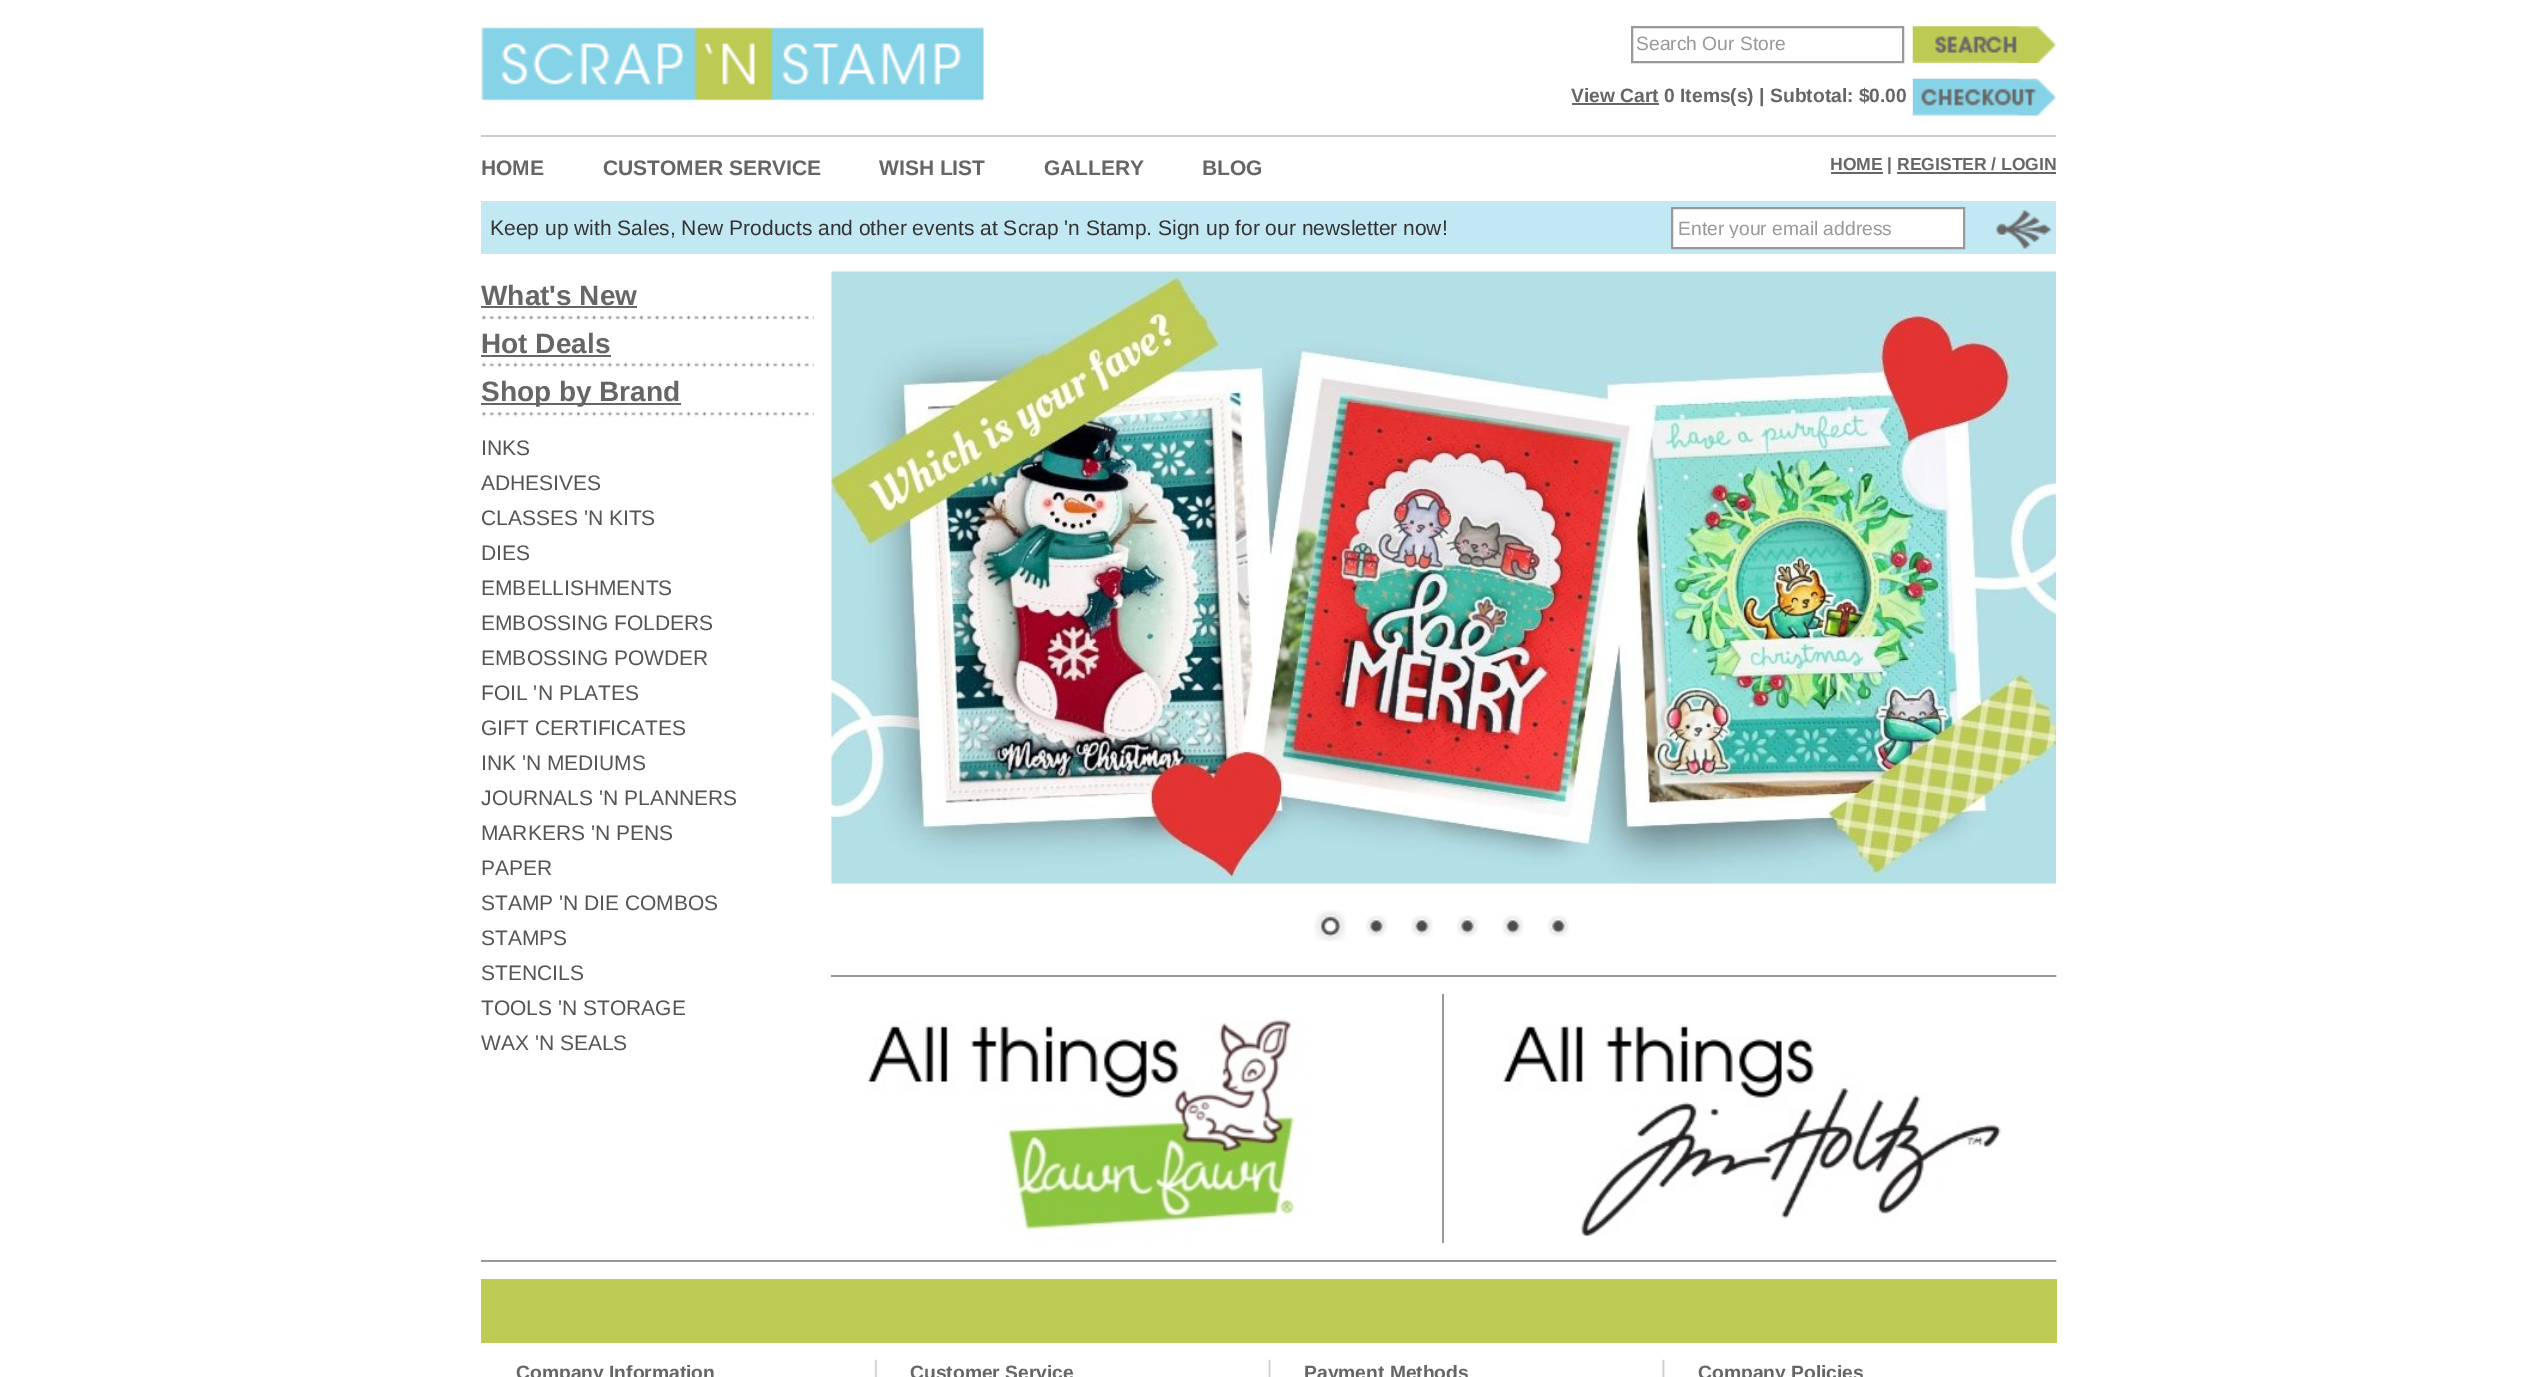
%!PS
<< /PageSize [2537 1377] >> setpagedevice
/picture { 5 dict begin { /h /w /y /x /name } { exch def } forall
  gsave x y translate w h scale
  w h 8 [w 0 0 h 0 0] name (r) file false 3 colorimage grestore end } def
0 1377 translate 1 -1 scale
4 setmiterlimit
1 setgray
0 0 2537 1377 rectfill
(img1.rgb) 481 27 503 74 picture
0.6 setgray
2 setlinewidth
1632 27 271 35 rectstroke
/LiberationSans-Regular [19.25 0 0 -19.25 0 0] selectfont
1636 50 moveto (Search Our Store) show
(img2.rgb) 1912 26 145 37 picture
0.4 setgray
1572 103 87 2 rectfill
/LiberationSans-Bold [19.25 0 0 -19.25 0 0] selectfont
1571 102 moveto (View Cart 0 Items\(s\) | Subtotal: $0.00) show
(img3.rgb) 1912 78 145 38 picture
0.8 setgray
481 135 1575 2 rectfill
/LiberationSans-Bold [21 0 0 -21 0 0] selectfont
0.4 setgray
481 175 moveto (HOME) show
603 175 moveto (CUSTOMER SERVICE) show
879 175 moveto (WISH LIST) show
1044 175 moveto (GALLERY) show
1202 175 moveto (BLOG) show
1831 172 52 2 rectfill
/LiberationSans-Bold [17.5 0 0 -17.5 0 0] selectfont
1830 170 moveto (HOME | REGISTER / LOGIN) show
1897 172 159 2 rectfill
0.761 0.914 0.953 setrgbcolor
481 201 1575 53 rectfill
/LiberationSans-Regular [21 0 0 -21 0 0] selectfont
0.2 setgray
490 235 moveto (Keep up with Sales, New Products and other events at Scrap 'n Stamp. Sign up for our newsletter now!) show
1 setgray
newpath 1672 208 moveto 1964 208 lineto 1964 248 lineto 1672 248 lineto closepath gsave fill grestore
0.6 setgray
stroke
gsave
1678 217 280 21 rectclip
/LiberationSans-Regular [19.25 0 0 -19.25 0 0] selectfont
1678 235 moveto (Enter your email address) show
grestore
(img4.rgb) 1996 210 56 39 picture
(img5.rgb) 481 315 333 6 picture
/LiberationSans-Bold [28 0 0 -28 0 0] selectfont
0.4 setgray
481 305 moveto (What's New) show
481 306 156 2 rectfill
(img6.rgb) 481 362 333 6 picture
481 353 moveto (Hot Deals) show
481 355 130 2 rectfill
(img6.rgb) 481 411 333 6 picture
481 403 200 2 rectfill
481 401 moveto (Shop by Brand) show
/LiberationSans-Regular [21 0 0 -21 0 0] selectfont
0.333 setgray
481 455 moveto (INKS) show
481 490 moveto (ADHESIVES) show
481 525 moveto (CLASSES 'N KITS) show
481 560 moveto (DIES) show
481 595 moveto (EMBELLISHMENTS) show
481 630 moveto (EMBOSSING FOLDERS) show
481 665 moveto (EMBOSSING POWDER) show
481 700 moveto (FOIL 'N PLATES) show
481 735 moveto (GIFT CERTIFICATES) show
481 770 moveto (INK 'N MEDIUMS) show
481 805 moveto (JOURNALS 'N PLANNERS) show
481 840 moveto (MARKERS 'N PENS) show
481 875 moveto (PAPER) show
481 910 moveto (STAMP 'N DIE COMBOS) show
481 945 moveto (STAMPS) show
481 980 moveto (STENCILS) show
481 1015 moveto (TOOLS 'N STORAGE) show
481 1050 moveto (WAX 'N SEALS) show
(img7.rgb) 831 271 1226 613 picture
(img8.rgb) 1314 910 32 31 picture
(img9.rgb) 1366 915 21 22 picture
(img10.rgb) 1411 915 22 22 picture
(img9.rgb) 1457 915 21 22 picture
(img11.rgb) 1502 915 22 22 picture
(img9.rgb) 1548 915 21 22 picture
0.867 setgray
2055 975 2 2 rectfill
0.6 setgray
831 975 1225 2 rectfill
(img12.rgb) 867 1019 440 223 picture
1442 994 2 249 rectfill
(img13.rgb) 1495 1024 506 213 picture
0.867 setgray
2055 1260 2 2 rectfill
0.6 setgray
481 1260 1575 2 rectfill
0.741 0.792 0.329 setrgbcolor
481 1279 1576 64 rectfill
(img14.rgb) 874 1359 791 18 picture
/LiberationSans-Bold [19.25 0 0 -19.25 0 0] selectfont
0.4 setgray
516 1379 moveto (Company Information) show
910 1379 moveto (Customer Service) show
1304 1379 moveto (Payment Methods) show
1698 1379 moveto (Company Policies) show
showpage
